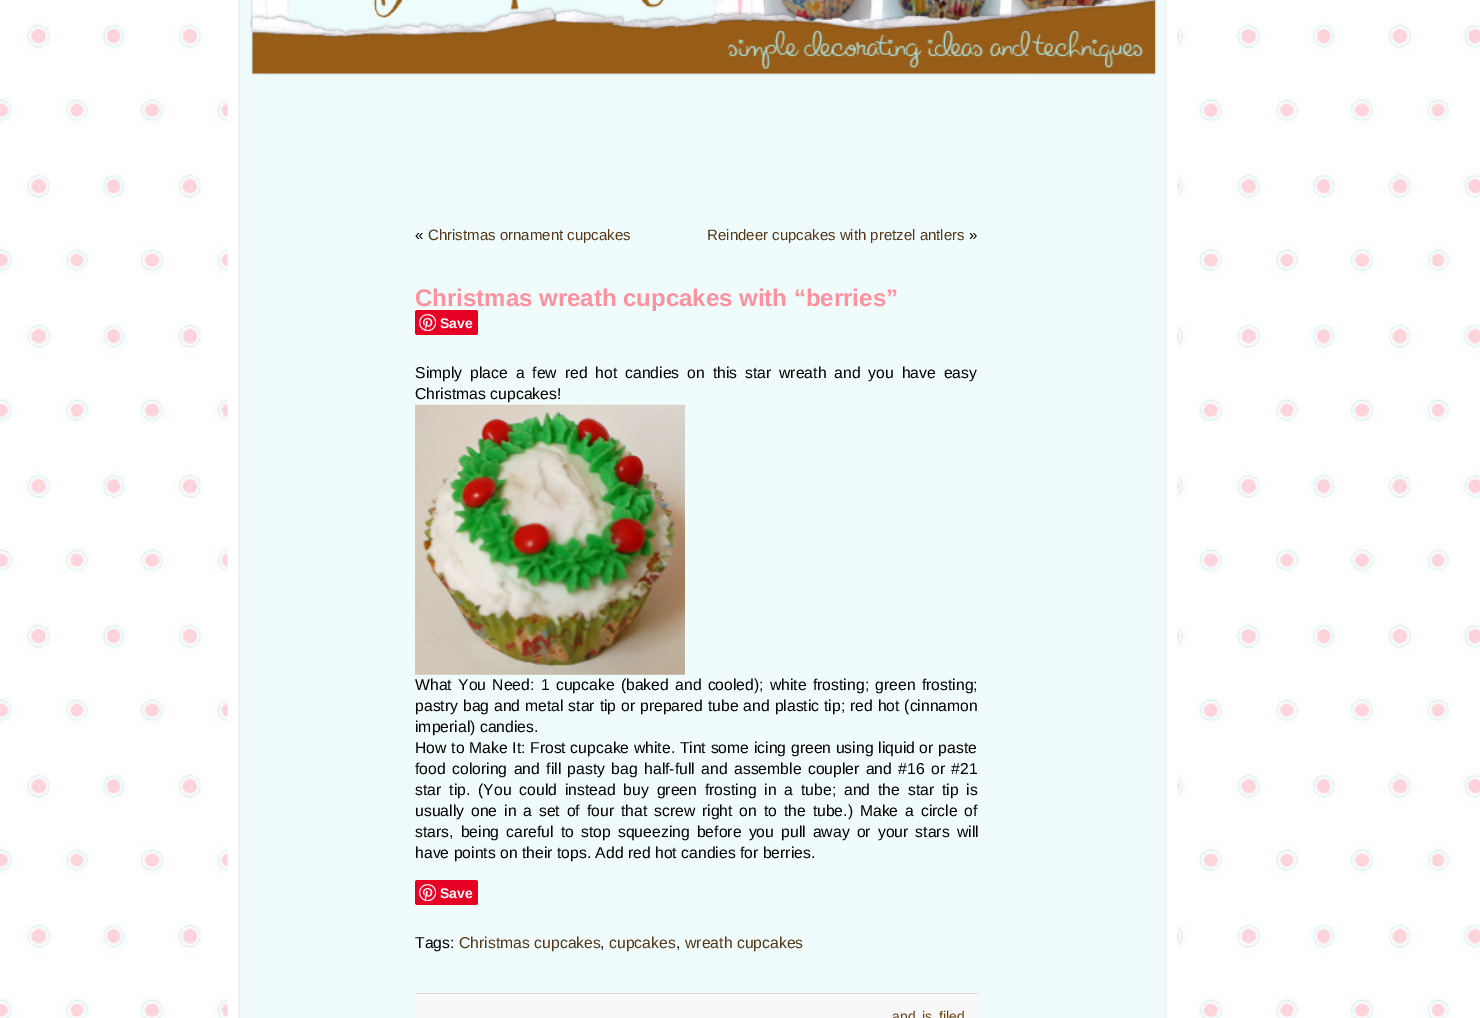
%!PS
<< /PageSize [1480 1018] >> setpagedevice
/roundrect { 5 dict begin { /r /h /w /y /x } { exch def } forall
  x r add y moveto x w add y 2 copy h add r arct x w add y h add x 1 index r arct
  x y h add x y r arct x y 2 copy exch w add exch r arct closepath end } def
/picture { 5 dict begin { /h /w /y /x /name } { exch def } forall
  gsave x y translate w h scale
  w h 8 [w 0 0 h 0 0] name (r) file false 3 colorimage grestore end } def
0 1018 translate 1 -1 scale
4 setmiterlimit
1 setgray
0 0 1480 1018 rectfill
(img1.rgb) 0 17 1480 1001 picture
(img2.rgb) 227 0 951 1018 picture
(img3.rgb) 249 0 910 80 picture
/LiberationSans-Regular [15 0 0 -15 0 0] selectfont
0 setgray
415 240 moveto («) show
0.322 0.22 0.098 setrgbcolor
428 240 moveto (Christmas ornament cupcakes) show
707 240 moveto (Reindeer cupcakes with pretzel antlers) show
0 setgray
969 240 moveto (») show
/LiberationSans-Bold [24 0 0 -24 0 0] selectfont
1 0.569 0.62 setrgbcolor
415 306 moveto (Christmas wreath cupcakes with “berries”) show
0.902 0 0.137 setrgbcolor
415 310 63 25 2.5 roundrect fill
(img4.rgb) 419 314 17 17 picture
/LiberationSans-Bold [14 0 0 -14 0 0] selectfont
1 setgray
440 328 moveto (Save) show
/LiberationSans-Regular [15.75 0 0 -15.75 0 0] selectfont
0 setgray
415 378 moveto 3.5 0 32 (Simply place a few red hot candies on this star wreath and you have easy) widthshow
415 399 moveto (Christmas cupcakes!) show
(img5.rgb) 415 404 270 271 picture
415 690 moveto 1.9 0 32 (What You Need: 1 cupcake \(baked and cooled\); white frosting; green frosting;) widthshow
415 711 moveto 0.5 0 32 (pastry bag and metal star tip or prepared tube and plastic tip; red hot \(cinnamon) widthshow
415 732 moveto (imperial\) candies.) show
415 753 moveto 0.3 0 32 (How to Make It: Frost cupcake white. Tint some icing green using liquid or paste) widthshow
415 774 moveto 2 0 32 (food coloring and fill pasty bag half-full and assemble coupler and #16 or #21) widthshow
415 795 moveto 3.5 0 32 (star tip. \(You could instead buy green frosting in a tube; and the star tip is) widthshow
415 816 moveto 2.5 0 32 (usually one in a set of four that screw right on to the tube.\) Make a circle of) widthshow
415 837 moveto 2.75 0 32 (stars, being careful to stop squeezing before you pull away or your stars will) widthshow
415 858 moveto (have points on their tops. Add red hot candies for berries.) show
0.902 0 0.137 setrgbcolor
415 880 63 25 2.5 roundrect fill
(img4.rgb) 419 884 17 17 picture
/LiberationSans-Bold [14 0 0 -14 0 0] selectfont
1 setgray
440 898 moveto (Save) show
/LiberationSans-Regular [15.75 0 0 -15.75 0 0] selectfont
0 setgray
415 948 moveto (Tags:) show
0.322 0.22 0.098 setrgbcolor
459 948 moveto (Christmas cupcakes) show
0 setgray
600 948 moveto (,) show
0.322 0.22 0.098 setrgbcolor
609 948 moveto (cupcakes) show
0 setgray
676 948 moveto (,) show
0.322 0.22 0.098 setrgbcolor
685 948 moveto (wreath cupcakes) show
0.973 setgray
415 994 563 24 rectfill
0.867 setgray
415 993 563 1 rectfill
/LiberationSans-Regular [14 0 0 -14 0 0] selectfont
0.416 0.267 0.09 setrgbcolor
892 1021 moveto 2.75 0 32 (and is filed) widthshow
showpage
